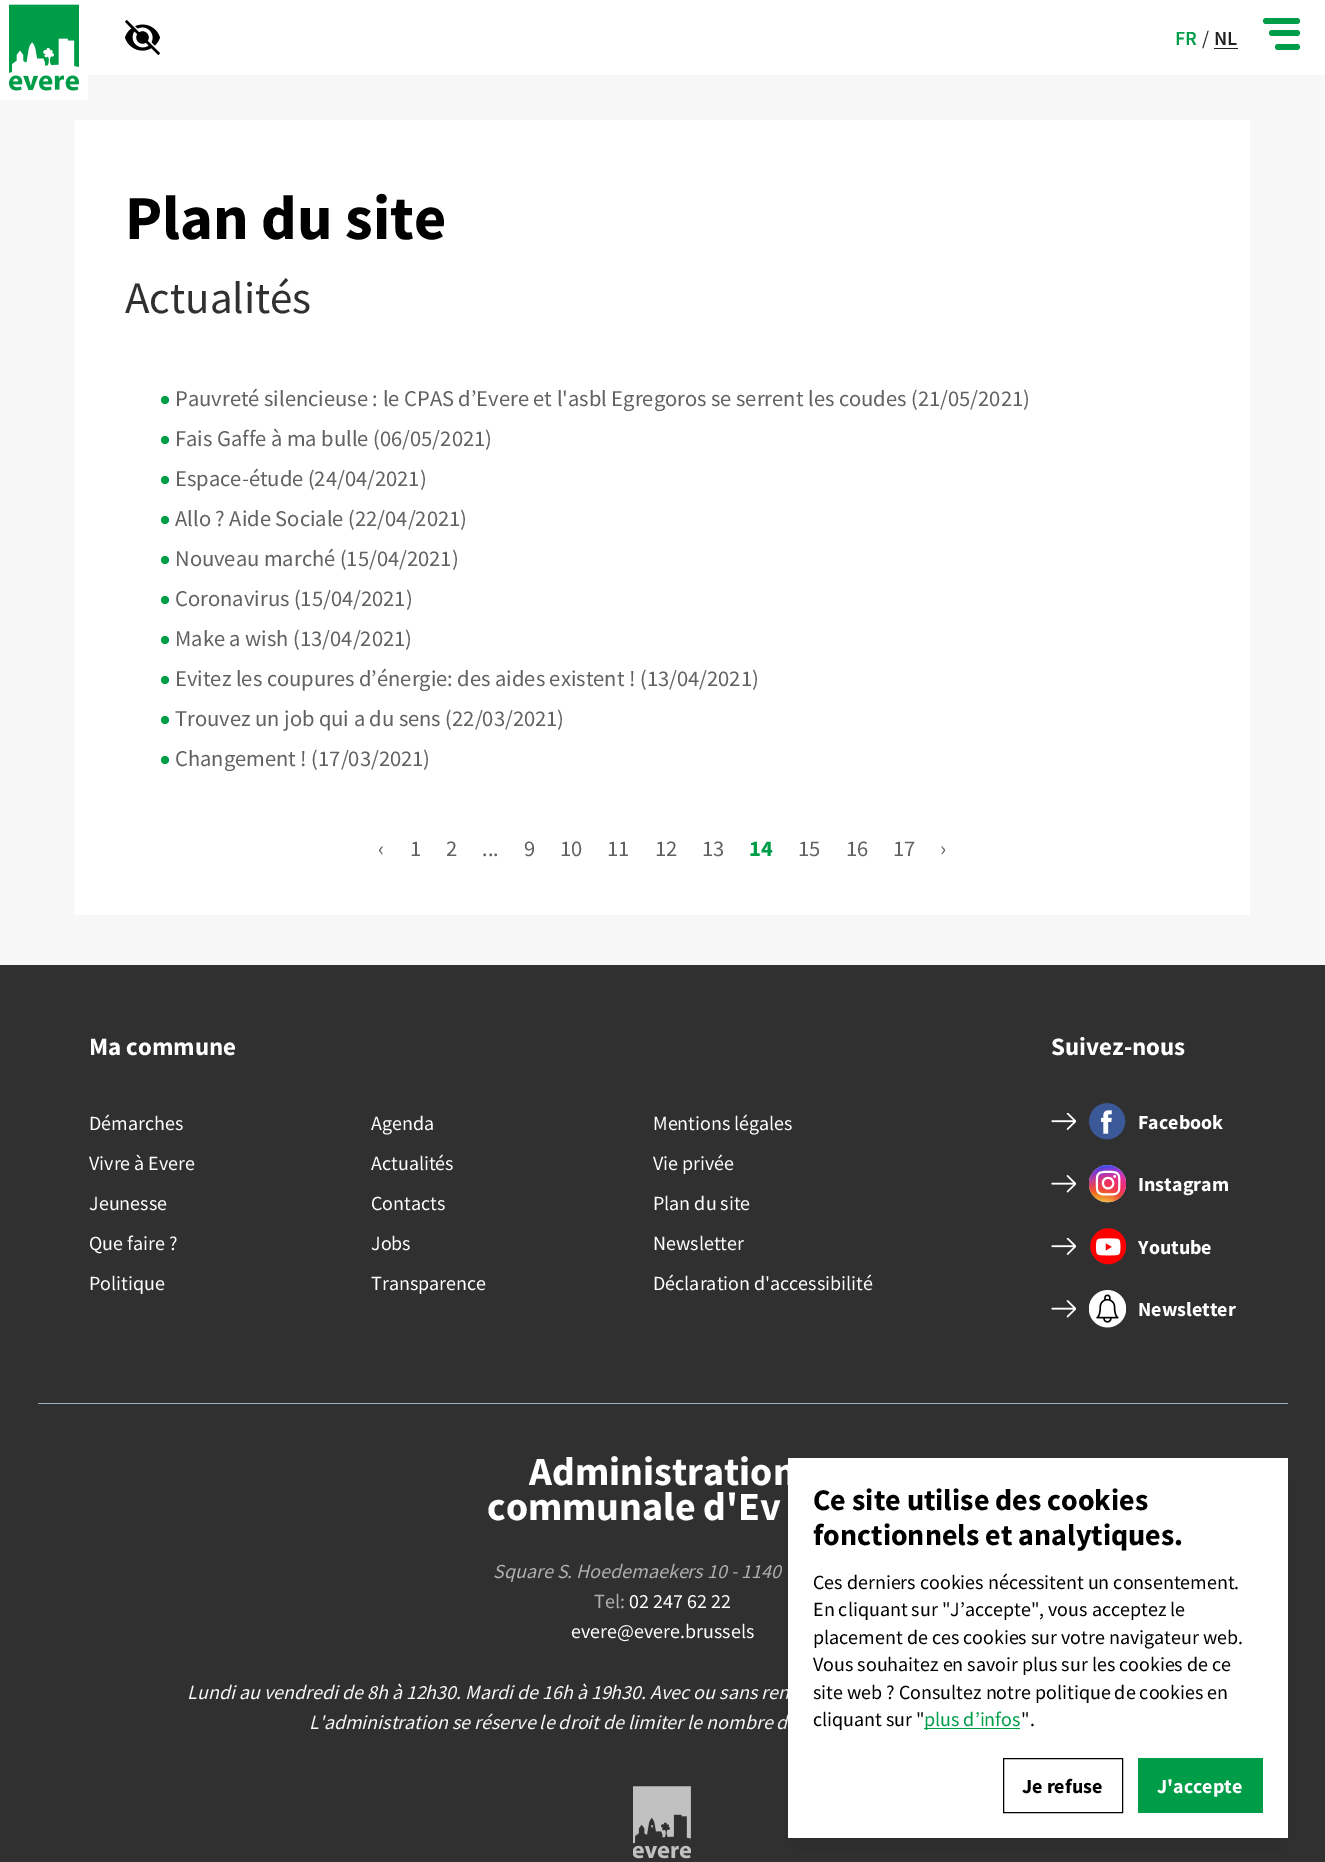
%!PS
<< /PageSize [1325 1862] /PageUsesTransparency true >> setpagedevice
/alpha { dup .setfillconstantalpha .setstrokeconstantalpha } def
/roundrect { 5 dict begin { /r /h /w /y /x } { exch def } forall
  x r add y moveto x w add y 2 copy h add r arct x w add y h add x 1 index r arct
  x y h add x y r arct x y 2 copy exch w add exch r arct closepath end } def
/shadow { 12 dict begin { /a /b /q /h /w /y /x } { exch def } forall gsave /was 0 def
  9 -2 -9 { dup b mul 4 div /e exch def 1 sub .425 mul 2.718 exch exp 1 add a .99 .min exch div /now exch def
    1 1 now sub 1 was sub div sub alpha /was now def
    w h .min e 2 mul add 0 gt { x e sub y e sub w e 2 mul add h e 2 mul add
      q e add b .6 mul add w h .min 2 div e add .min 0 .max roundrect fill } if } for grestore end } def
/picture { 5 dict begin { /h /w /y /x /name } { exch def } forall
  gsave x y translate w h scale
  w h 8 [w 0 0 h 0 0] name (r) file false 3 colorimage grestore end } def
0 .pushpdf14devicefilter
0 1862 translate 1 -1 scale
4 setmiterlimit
0.969 setgray
0 0 1325 1862 rectfill
1 setgray
88 0 1237 75 rectfill
0 0 88 100 rectfill
(img1.rgb) 9 4 70 87 picture
(img2.rgb) 125 20 35 35 picture
/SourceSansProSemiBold-SemiBold [20 0 0 -20 0 0] selectfont
0 0.616 0.286 setrgbcolor
1175 45 moveto (FR) show
/SourceSansPro-Regular [20 0 0 -20 0 0] selectfont
0.125 0.122 0.129 setrgbcolor
1202 45 moveto (/) show
1214 48 24 1 rectfill
/SourceSansProSemiBold-SemiBold [20 0 0 -20 0 0] selectfont
1214 45 moveto (NL) show
0 0.616 0.286 setrgbcolor
1275 44 25 6 3 roundrect fill
1269 30 31 6 3 roundrect fill
1263 18 37 6 3 roundrect fill
1 setgray
75 120 1175 795 rectfill
/SourceSansPro-Bold [62.5 0 0 -62.5 0 0] selectfont
0 setgray
125 239 moveto (Plan du site) show
/SourceSansPro-Regular [45 0 0 -45 0 0] selectfont
0.188 setgray
125 313 moveto (Actualités) show
0 0.616 0.286 setrgbcolor
newpath 165 400 4 0 360 arc closepath fill
/SourceSansPro-Regular [22.5 0 0 -22.5 0 0] selectfont
0.384 setgray
175 406 moveto (Pauvreté silencieuse : le CPAS d’Evere et l'asbl Egregoros se serrent les coudes \(21/05/2021\)) show
0 0.616 0.286 setrgbcolor
newpath 165 440 4 0 360 arc closepath fill
0.384 setgray
175 446 moveto (Fais Gaffe à ma bulle \(06/05/2021\)) show
0 0.616 0.286 setrgbcolor
newpath 165 480 4 0 360 arc closepath fill
0.384 setgray
175 486 moveto (Espace-étude \(24/04/2021\)) show
0 0.616 0.286 setrgbcolor
newpath 165 520 4 0 360 arc closepath fill
0.384 setgray
175 526 moveto (Allo ? Aide Sociale \(22/04/2021\)) show
0 0.616 0.286 setrgbcolor
newpath 165 560 4 0 360 arc closepath fill
0.384 setgray
175 566 moveto (Nouveau marché \(15/04/2021\)) show
0 0.616 0.286 setrgbcolor
newpath 165 600 4 0 360 arc closepath fill
0.384 setgray
175 606 moveto (Coronavirus \(15/04/2021\)) show
0 0.616 0.286 setrgbcolor
newpath 165 640 4 0 360 arc closepath fill
0.384 setgray
175 646 moveto (Make a wish \(13/04/2021\)) show
0 0.616 0.286 setrgbcolor
newpath 165 680 4 0 360 arc closepath fill
0.384 setgray
175 686 moveto (Evitez les coupures d’énergie: des aides existent ! \(13/04/2021\)) show
0 0.616 0.286 setrgbcolor
newpath 165 720 4 0 360 arc closepath fill
0.384 setgray
175 726 moveto (Trouvez un job qui a du sens \(22/03/2021\)) show
0 0.616 0.286 setrgbcolor
newpath 165 760 4 0 360 arc closepath fill
0.384 setgray
175 766 moveto (Changement ! \(17/03/2021\)) show
378 856 moveto (‹) show
410 856 moveto (1) show
446 856 moveto (2) show
482 856 moveto (...) show
524 856 moveto (9) show
560 856 moveto (10) show
607 856 moveto (11) show
655 856 moveto (12) show
702 856 moveto (13) show
/SourceSansPro-Bold [22.5 0 0 -22.5 0 0] selectfont
0 0.616 0.286 setrgbcolor
749 856 moveto (14) show
/SourceSansPro-Regular [22.5 0 0 -22.5 0 0] selectfont
0.384 setgray
798 856 moveto (15) show
846 856 moveto (16) show
893 856 moveto (17) show
940 856 moveto (›) show
0.188 setgray
0 965 1325 897 rectfill
/SourceSansPro-Bold [25 0 0 -25 0 0] selectfont
1 setgray
89 1055 moveto (Ma commune) show
/SourceSansPro-Regular [20 0 0 -20 0 0] selectfont
89 1130 moveto (Démarches) show
371 1130 moveto (Agenda) show
653 1130 moveto (Mentions légales) show
89 1170 moveto (Vivre à Evere) show
371 1170 moveto (Actualités) show
653 1170 moveto (Vie privée) show
89 1210 moveto (Jeunesse) show
371 1210 moveto (Contacts) show
653 1210 moveto (Plan du site) show
89 1250 moveto (Que faire ?) show
371 1250 moveto (Jobs) show
653 1250 moveto (Newsletter) show
89 1290 moveto (Politique) show
371 1290 moveto (Transparence) show
653 1290 moveto (Déclaration d'accessibilité) show
/SourceSansPro-Bold [25 0 0 -25 0 0] selectfont
1051 1055 moveto (Suivez-nous) show
(img3.rgb) 1051 1113 25 17 picture
(img4.rgb) 1089 1103 37 37 picture
/SourceSansPro-Bold [20 0 0 -20 0 0] selectfont
1138 1129 moveto (Facebook) show
(img5.rgb) 1051 1175 25 18 picture
(img6.rgb) 1089 1165 37 38 picture
1138 1191 moveto (Instagram) show
(img3.rgb) 1051 1238 25 17 picture
(img7.rgb) 1090 1228 36 37 picture
1138 1254 moveto (Youtube) show
(img5.rgb) 1051 1300 25 18 picture
(img8.rgb) 1089 1290 37 38 picture
1138 1316 moveto (Newsletter) show
0.627 0.682 0.753 setrgbcolor
38 1403 1250 1 rectfill
/SourceSansPro-Bold [40 0 0 -40 0 0] selectfont
1 setgray
529 1485 moveto (Administration) show
487 1520 moveto (communale d'Ev) show
/SourceSansPro-Italic [20 0 0 -20 0 0] selectfont
0.686 setgray
493 1578 moveto (Square S. Hoedemaekers 10 - 1140) show
/SourceSansPro-Regular [20 0 0 -20 0 0] selectfont
594 1608 moveto (Tel:) show
1 setgray
629 1608 moveto (02 247 62 22) show
571 1638 moveto (evere@evere.brussels) show
/SourceSansPro-Italic [20 0 0 -20 0 0] selectfont
0.969 setgray
187 1699 moveto (Lundi au vendredi de 8h à 12h30. Mardi de 16h à 19h30. Avec ou sans ren) show
309 1729 moveto (L'administration se réserve le droit de limiter le nombre d) show
(img9.rgb) 633 1786 58 73 picture
0 setgray
791 1474 493 372 0 9.5 0.1 shadow
1 setgray
788 1458 500 380 rectfill
/SourceSansPro-Bold [30 0 0 -30 0 0] selectfont
0 setgray
813 1510 moveto (Ce site utilise des cookies) show
813 1545 moveto (fonctionnels et analytiques.) show
/SourceSansPro-Regular [20 0 0 -20 0 0] selectfont
813 1589 moveto (Ces derniers cookies nécessitent un consentement.) show
813 1616 moveto (En cliquant sur "J’accepte", vous acceptez le) show
813 1644 moveto (placement de ces cookies sur votre navigateur web.) show
813 1671 moveto (Vous souhaitez en savoir plus sur les cookies de ce) show
813 1699 moveto (site web ? Consultez notre politique de cookies en) show
813 1726 moveto (cliquant sur ") show
0 0.616 0.286 setrgbcolor
924 1728 96 1 rectfill
924 1726 moveto (plus d’infos) show
0 setgray
1021 1726 moveto (".) show
1003.5 1758.5 119 54 rectstroke
/SourceSansPro-Bold [20 0 0 -20 0 0] selectfont
1022 1793 moveto (Je refuse) show
0 0.616 0.286 setrgbcolor
1138 1758 125 55 rectfill
1 setgray
1157 1793 moveto (J'accepte) show
.poppdf14devicefilter showpage
